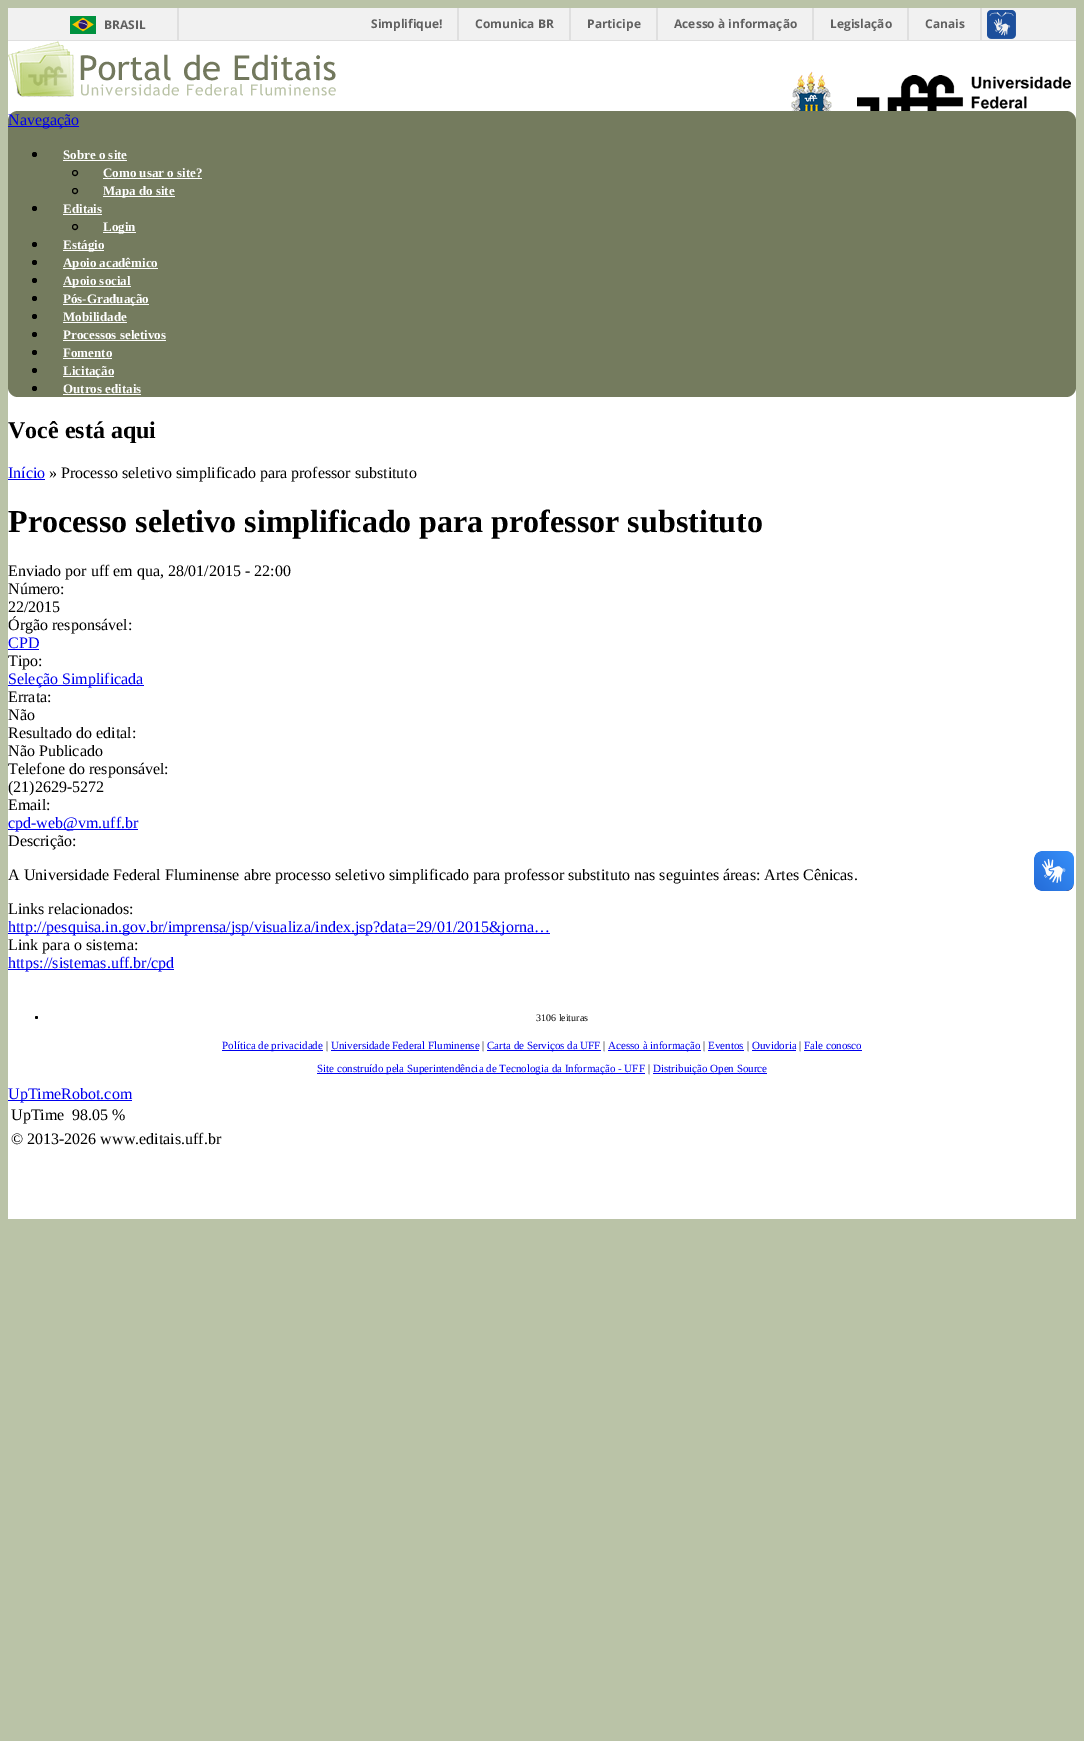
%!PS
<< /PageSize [1084 1741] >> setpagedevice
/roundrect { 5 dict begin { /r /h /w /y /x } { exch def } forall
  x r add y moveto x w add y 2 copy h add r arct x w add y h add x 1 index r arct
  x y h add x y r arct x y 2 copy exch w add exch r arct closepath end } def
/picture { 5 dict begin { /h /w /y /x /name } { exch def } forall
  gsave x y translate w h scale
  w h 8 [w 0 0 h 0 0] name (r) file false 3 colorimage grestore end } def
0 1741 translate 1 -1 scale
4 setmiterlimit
0.729 0.765 0.655 setrgbcolor
0 0 1084 1741 rectfill
1 setgray
8 41 1068 1178 rectfill
0.945 setgray
8 8 1068 32 rectfill
0.875 setgray
8 40 1068 1 rectfill
177 8 2 32 rectfill
(img1.rgb) 70 16 26 18 picture
/OpenSans-Bold [12 0 0 -12 0 0] selectfont
0.376 setgray
104 29 moveto (BRASIL) show
0.875 setgray
457 8 2 32 rectfill
0.376 setgray
371 28 moveto (Simplifique!) show
0.875 setgray
569 8 2 32 rectfill
0.376 setgray
475 28 moveto (Comunica BR) show
0.875 setgray
656 8 2 32 rectfill
0.376 setgray
587 28 moveto (Participe) show
0.875 setgray
812 8 2 32 rectfill
0.376 setgray
674 28 moveto (Acesso à informação) show
0.875 setgray
907 8 2 32 rectfill
0.376 setgray
830 28 moveto (Legislação) show
0.875 setgray
980 8 2 32 rectfill
0.376 setgray
925 28 moveto (Canais) show
(img2.rgb) 987 10 29 29 picture
(img3.rgb) 788 71 283 42 picture
(img4.rgb) 8 41 328 56 picture
0.455 0.482 0.369 setrgbcolor
8 111 1068 286 10 roundrect fill
0 0 0.933 setrgbcolor
8 126 71 1 rectfill
/LiberationSerif-Regular [16 0 0 -16 0 0] selectfont
8 125 moveto (Navegação) show
0 setgray
newpath 34.5 154.5 2.5 0 360 arc closepath fill
/LiberationSerif-Bold [13 0 0 -13 0 0] selectfont
1 setgray
63 159 moveto (Sobre o site) show
63 160 64 1 rectfill
0 setgray
newpath 75 173 2.5 0 360 arc closepath stroke
1 setgray
103 177 moveto (Como usar o site?) show
103 178 99 1 rectfill
0 setgray
newpath 75 191 2.5 0 360 arc closepath stroke
1 setgray
103 196 72 1 rectfill
103 195 moveto (Mapa do site) show
0 setgray
newpath 34.5 208.5 2.5 0 360 arc closepath fill
1 setgray
63 213 moveto (Editais) show
63 214 39 1 rectfill
0 setgray
newpath 75 227 2.5 0 360 arc closepath stroke
1 setgray
103 232 33 1 rectfill
103 231 moveto (Login) show
0 setgray
newpath 34.5 244.5 2.5 0 360 arc closepath fill
1 setgray
63 250 41 1 rectfill
63 249 moveto (Estágio) show
0 setgray
newpath 34.5 262.5 2.5 0 360 arc closepath fill
1 setgray
63 268 95 1 rectfill
63 267 moveto (Apoio acadêmico) show
0 setgray
newpath 34.5 280.5 2.5 0 360 arc closepath fill
1 setgray
63 286 68 1 rectfill
63 285 moveto (Apoio social) show
0 setgray
newpath 34.5 298.5 2.5 0 360 arc closepath fill
1 setgray
63 304 86 1 rectfill
63 303 moveto (Pós-Graduação) show
0 setgray
newpath 34.5 316.5 2.5 0 360 arc closepath fill
1 setgray
63 321 moveto (Mobilidade) show
63 322 64 1 rectfill
0 setgray
newpath 34.5 334.5 2.5 0 360 arc closepath fill
1 setgray
63 339 moveto (Processos seletivos) show
63 340 103 1 rectfill
0 setgray
newpath 34.5 352.5 2.5 0 360 arc closepath fill
1 setgray
63 357 moveto (Fomento) show
63 358 49 1 rectfill
0 setgray
newpath 34.5 370.5 2.5 0 360 arc closepath fill
1 setgray
63 376 51 1 rectfill
63 375 moveto (Licitação) show
0 setgray
newpath 34.5 388.5 2.5 0 360 arc closepath fill
1 setgray
63 393 moveto (Outros editais) show
63 394 78 1 rectfill
/LiberationSerif-Bold [24 0 0 -24 0 0] selectfont
0 setgray
8 438 moveto (Você está aqui) show
/LiberationSerif-Regular [16 0 0 -16 0 0] selectfont
0 0 0.933 setrgbcolor
8 478 moveto (Início) show
8 479 37 1 rectfill
0 setgray
49 478 moveto (» Processo seletivo simplificado para professor substituto) show
/LiberationSerif-Bold [32 0 0 -32 0 0] selectfont
8 532 moveto (Processo seletivo simplificado para professor substituto) show
/LiberationSerif-Regular [16 0 0 -16 0 0] selectfont
8 576 moveto (Enviado por uff em qua, 28/01/2015 - 22:00) show
8 594 moveto (Número:) show
8 612 moveto (22/2015) show
8 630 moveto (Órgão responsável:) show
0 0 0.933 setrgbcolor
8 648 moveto (CPD) show
8 649 31 1 rectfill
0 setgray
8 666 moveto (Tipo:) show
0 0 0.933 setrgbcolor
8 685 136 1 rectfill
8 684 moveto (Seleção Simplificada) show
0 setgray
8 702 moveto (Errata:) show
8 720 moveto (Não) show
8 738 moveto (Resultado do edital:) show
8 756 moveto (Não Publicado) show
8 774 moveto (Telefone do responsável:) show
8 792 moveto (\(21\)2629-5272) show
8 810 moveto (Email:) show
0 0 0.933 setrgbcolor
8 829 130 1 rectfill
8 828 moveto (cpd-web@vm.uff.br) show
0 setgray
8 846 moveto (Descrição:) show
8 880 moveto (A Universidade Federal Fluminense abre processo seletivo simplificado para professor substituto nas seguintes áreas: Artes Cênicas.) show
8 914 moveto (Links relacionados:) show
0 0 0.933 setrgbcolor
8 933 542 1 rectfill
8 932 moveto (http://pesquisa.in.gov.br/imprensa/jsp/visualiza/index.jsp?data=29/01/2015&jorna…) show
0 setgray
8 950 moveto (Link para o sistema:) show
0 0 0.933 setrgbcolor
8 969 166 1 rectfill
8 968 moveto (https://sistemas.uff.br/cpd) show
0 setgray
newpath 36.5 1017.5 1.5 0 360 arc closepath fill
/LiberationSerif-Regular [10 0 0 -10 0 0] selectfont
536 1021 moveto (3106 leituras) show
0 0 0.933 setrgbcolor
222 1050 101 1 rectfill
/LiberationSerif-Regular [11 0 0 -11 0 0] selectfont
222 1049 moveto (Política de privacidade) show
0 setgray
326 1049 moveto (|) show
0 0 0.933 setrgbcolor
331 1049 moveto (Universidade Federal Fluminense) show
331 1050 148 1 rectfill
0 setgray
482 1049 moveto (|) show
0 0 0.933 setrgbcolor
487 1050 114 1 rectfill
487 1049 moveto (Carta de Serviços da UFF) show
0 setgray
603 1049 moveto (|) show
0 0 0.933 setrgbcolor
608 1050 93 1 rectfill
608 1049 moveto (Acesso à informação) show
0 setgray
703 1049 moveto (|) show
0 0 0.933 setrgbcolor
708 1049 moveto (Eventos) show
708 1050 36 1 rectfill
0 setgray
747 1049 moveto (|) show
0 0 0.933 setrgbcolor
752 1049 moveto (Ouvidoria) show
752 1050 44 1 rectfill
0 setgray
799 1049 moveto (|) show
0 0 0.933 setrgbcolor
804 1049 moveto (Fale conosco) show
804 1050 58 1 rectfill
317 1073 328 1 rectfill
317 1072 moveto (Site construído pela Superintendência de Tecnologia da Informação - UFF) show
0 setgray
648 1072 moveto (|) show
0 0 0.933 setrgbcolor
653 1073 114 1 rectfill
653 1072 moveto (Distribuição Open Source) show
8 1100 124 1 rectfill
/LiberationSerif-Regular [16 0 0 -16 0 0] selectfont
8 1099 moveto (UpTimeRobot.com) show
0 setgray
11 1120 moveto (UpTime) show
72 1120 moveto (98.05 %) show
11 1144 moveto (© 2013-2026 www.editais.uff.br) show
(img5.rgb) 1034 851 40 40 picture
(img6.rgb) 1034 851 40 40 picture
showpage
